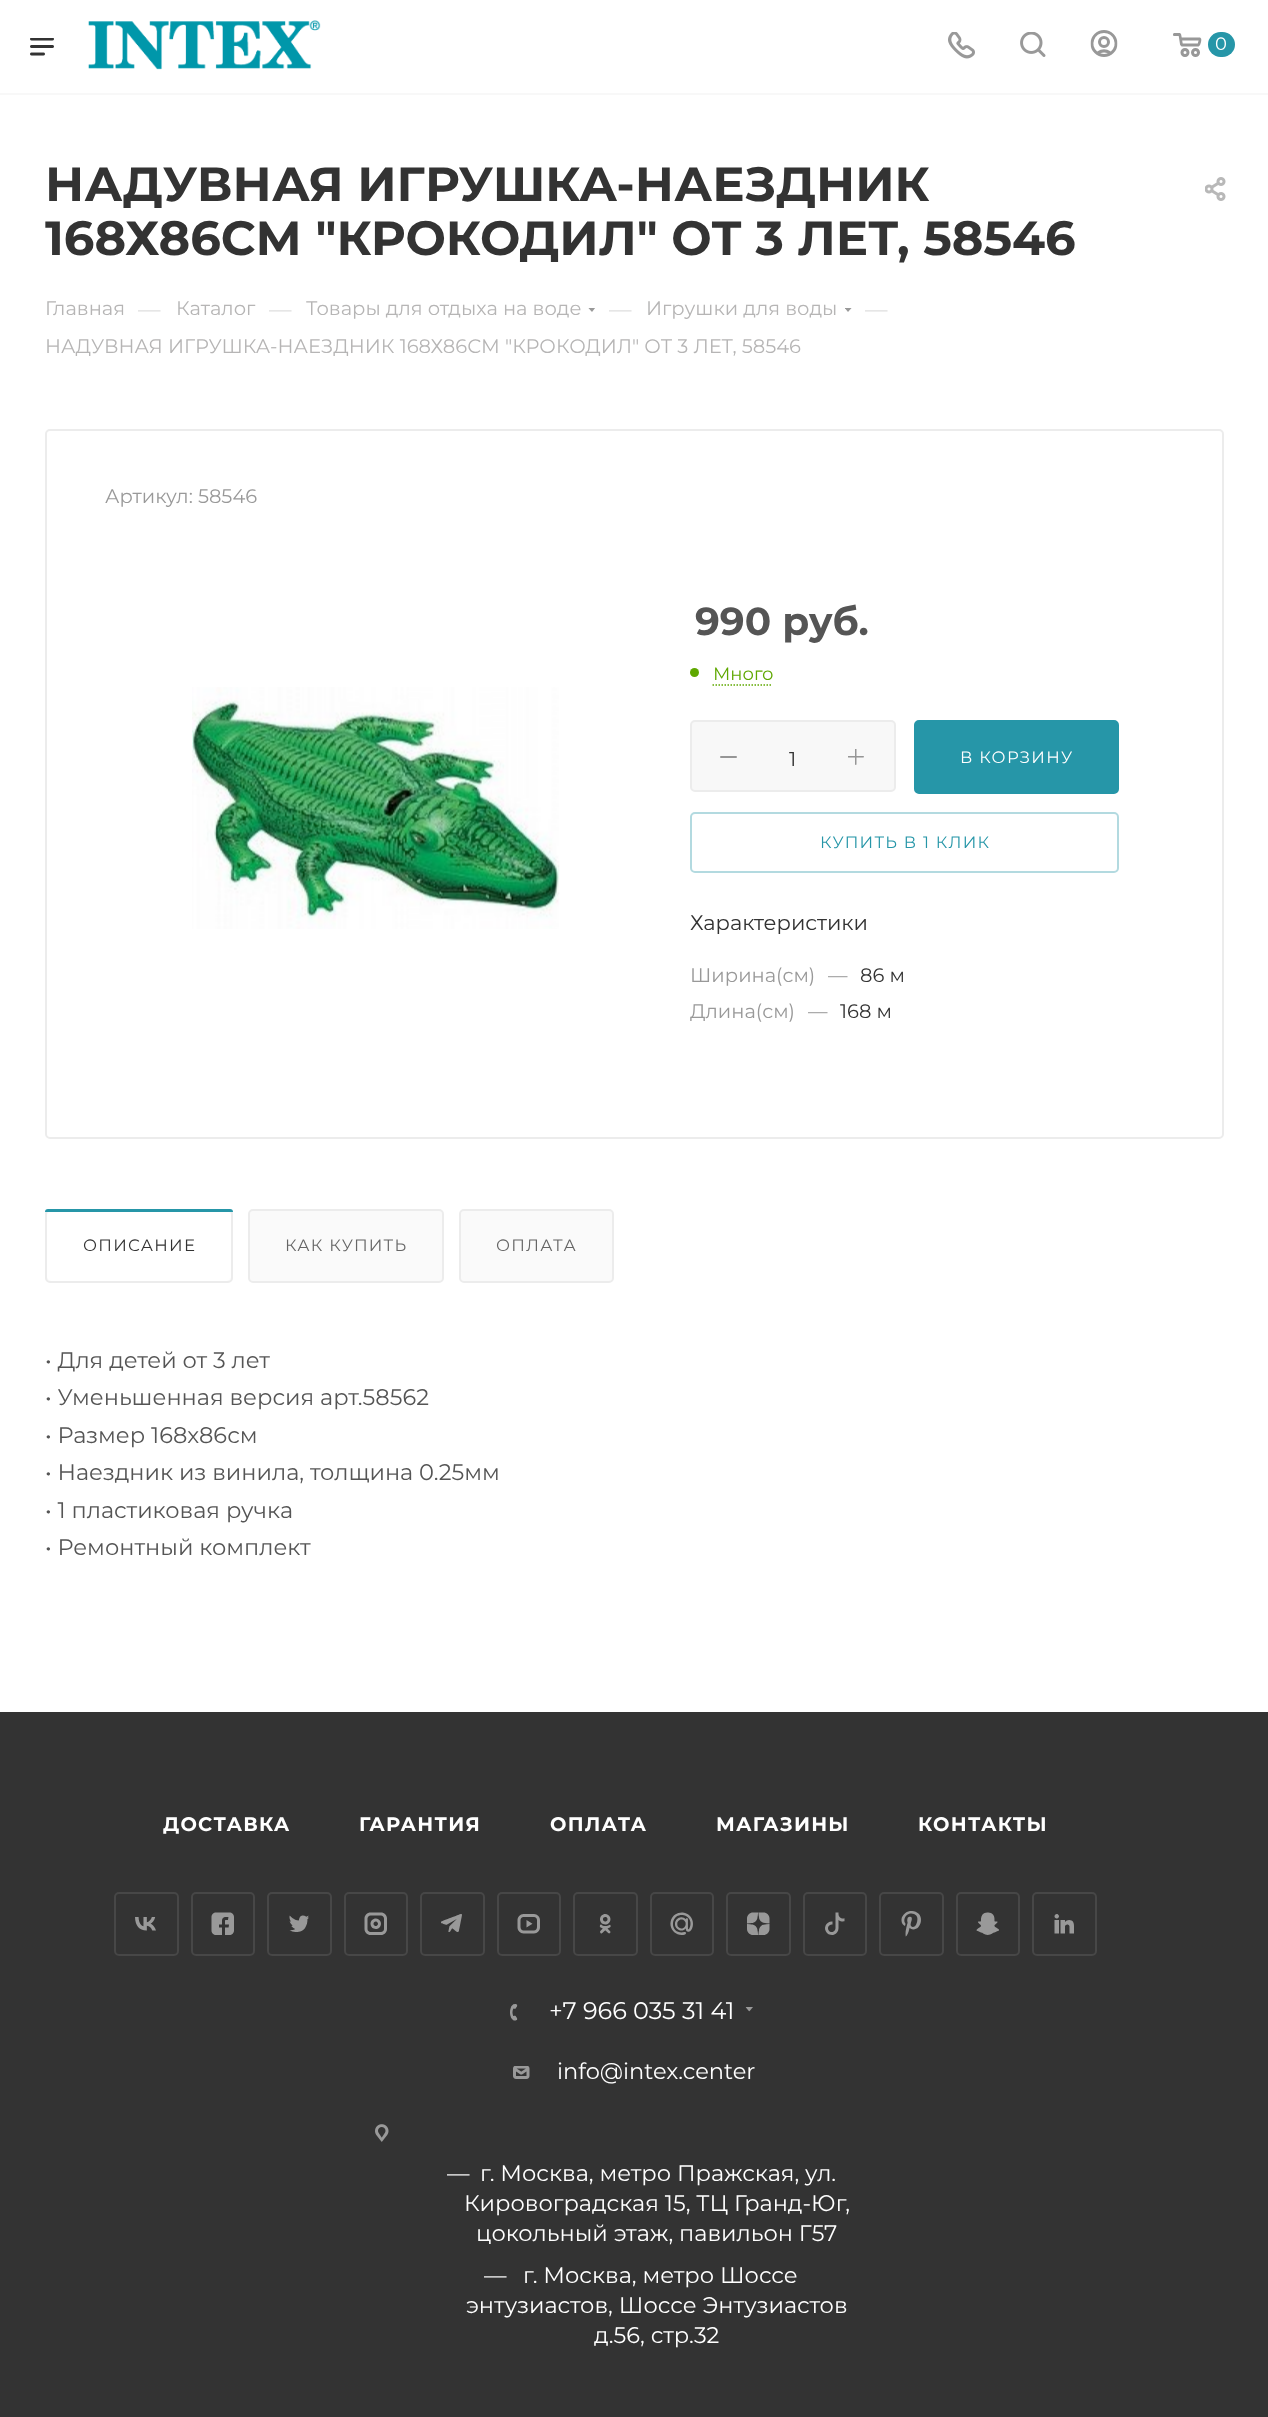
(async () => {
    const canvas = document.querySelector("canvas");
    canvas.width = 1268;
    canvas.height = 2417;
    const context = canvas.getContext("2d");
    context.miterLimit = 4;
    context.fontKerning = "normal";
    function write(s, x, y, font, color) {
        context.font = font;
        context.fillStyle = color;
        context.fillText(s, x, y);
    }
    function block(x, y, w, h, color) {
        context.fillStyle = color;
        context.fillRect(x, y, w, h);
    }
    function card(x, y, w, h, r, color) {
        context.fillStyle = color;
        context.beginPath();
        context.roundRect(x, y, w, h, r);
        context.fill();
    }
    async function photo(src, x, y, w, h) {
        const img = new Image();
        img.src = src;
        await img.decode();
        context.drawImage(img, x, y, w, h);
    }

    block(0, 0, 1268, 2417, "rgb(255, 255, 255)");
    block(0, 93, 1268, 2, "rgb(248, 248, 248)");
    await photo("media/1.png", 30, 38, 24, 18);
    await photo("media/2.png", 88, 20, 233, 50);
    await photo("media/3.png", 948, 32, 27, 27);
    await photo("media/4.png", 1020, 32, 26, 25);
    await photo("media/5.png", 1090, 30, 28, 27);
    await photo("media/6.png", 1173, 33, 29, 24);
    card(1208, 32, 27, 25, 12.5, "rgb(38, 150, 168)");
    write("0", 1215, 50, "18px Montserrat", "rgb(255, 255, 255)");
    write("НАДУВНАЯ ИГРУШКА-НАЕЗДНИК", 45, 201, "bold 48px Montserrat", "rgb(51, 51, 51)");
    write("168Х86СМ \"КРОКОДИЛ\" ОТ 3 ЛЕТ, 58546", 45, 255, "bold 48px Montserrat", "rgb(51, 51, 51)");
    await photo("media/7.png", 1205, 177, 21, 24);
    write("Главная", 45, 315, "19.5px Montserrat", "rgb(182, 181, 181)");
    write("—", 138, 317, "22.5px Montserrat", "rgb(221, 221, 221)");
    write("Каталог", 176, 315, "19.5px Montserrat", "rgb(182, 181, 181)");
    write("—", 269, 317, "22.5px Montserrat", "rgb(221, 221, 221)");
    write("Товары для отдыха на воде", 306, 315, "19.5px Montserrat", "rgb(182, 181, 181)");
    context.save();
    context.beginPath();
    context.rect(588, 308, 8, 5);
    context.clip();
    context.fillStyle = "rgb(153, 153, 153)";
    context.beginPath();
    context.moveTo(588, 307.5);
    context.lineTo(595.5, 307.5);
    context.lineTo(592, 312);
    context.closePath();
    context.fill("evenodd");
    context.restore();
    write("—", 609, 317, "22.5px Montserrat", "rgb(221, 221, 221)");
    write("Игрушки для воды", 646, 315, "19.5px Montserrat", "rgb(182, 181, 181)");
    context.save();
    context.beginPath();
    context.rect(845, 308, 7, 5);
    context.clip();
    context.fillStyle = "rgb(153, 153, 153)";
    context.beginPath();
    context.moveTo(844.5, 307.5);
    context.lineTo(852, 307.5);
    context.lineTo(848, 312);
    context.closePath();
    context.fill("evenodd");
    context.restore();
    write("—", 865, 317, "22.5px Montserrat", "rgb(221, 221, 221)");
    write("НАДУВНАЯ ИГРУШКА-НАЕЗДНИК 168Х86СМ \"КРОКОДИЛ\" ОТ 3 ЛЕТ, 58546", 45, 353, "19.5px Montserrat", "rgb(182, 181, 181)");
    context.beginPath();
    context.roundRect(46, 430, 1177, 708, 4);
    context.strokeStyle = "rgb(236, 236, 236)";
    context.lineWidth = 2;
    context.stroke();
    write("Артикул: 58546", 105, 503, "19.5px Montserrat", "rgb(153, 153, 153)");
    await photo("media/8.png", 192, 687, 368, 242);
    write("990 руб.", 695, 635, "bold 39px Montserrat", "rgb(85, 85, 85)");
    context.fillStyle = "rgb(95, 168, 0)";
    context.beginPath();
    context.arc(694.5, 672.5, 4.5, 0, Math.PI * 2);
    context.fill();
    write("Много", 713, 680, "18px Montserrat", "rgb(95, 168, 0)");
    context.beginPath();
    context.moveTo(712.5, 685);
    context.lineTo(772.5, 685);
    context.strokeStyle = "rgb(95, 168, 0)";
    context.lineWidth = 1.5;
    context.setLineDash([1.5, 1.5]);
    context.stroke();
    context.fillStyle = "rgb(248, 248, 248)";
    context.beginPath();
    context.roundRect(691, 721, 204, 70, 4);
    context.fill();
    context.strokeStyle = "rgb(236, 236, 236)";
    context.lineWidth = 2;
    context.setLineDash([]);
    context.stroke();
    card(720, 756, 17, 2, 1, "rgb(150, 150, 150)");
    write("1", 789, 766, "20px Montserrat", "rgb(51, 51, 51)");
    await photo("media/9.png", 848, 749, 16, 16);
    context.fillStyle = "rgb(38, 150, 168)";
    context.beginPath();
    context.roundRect(915, 721, 203, 72, 4);
    context.fill();
    context.strokeStyle = "rgb(38, 150, 168)";
    context.stroke();
    context.letterSpacing = "1.25px";
    write("В КОРЗИНУ", 960, 763, "16.5px Montserrat", "rgb(255, 255, 255)");
    context.beginPath();
    context.roundRect(691, 813, 427, 59, 4);
    context.strokeStyle = "rgb(179, 218, 224)";
    context.stroke();
    write("КУПИТЬ В 1 КЛИК", 820, 848, "16.5px Montserrat", "rgb(38, 150, 168)");
    context.letterSpacing = "0px";
    write("Характеристики", 690, 930, "21px Montserrat", "rgb(51, 51, 51)");
    write("Ширина(см)", 690, 982, "19.5px Montserrat", "rgb(153, 153, 153)");
    write("—", 828, 982, "19.5px Montserrat", "rgb(153, 153, 153)");
    write("86 м", 860, 982, "19.5px Montserrat", "rgb(51, 51, 51)");
    write("Длина(см)", 690, 1018, "19.5px Montserrat", "rgb(153, 153, 153)");
    write("—", 808, 1018, "19.5px Montserrat", "rgb(153, 153, 153)");
    write("168 м", 840, 1018, "19.5px Montserrat", "rgb(51, 51, 51)");
    context.fillStyle = "rgb(250, 250, 250)";
    context.beginPath();
    context.roundRect(46, 1210, 186, 72, 4);
    context.fill();
    context.strokeStyle = "rgb(236, 236, 236)";
    context.stroke();
    card(47, 1211, 184, 70, 5, "rgb(255, 255, 255)");
    context.fillStyle = "rgb(38, 150, 168)";
    context.beginPath();
    context.roundRect(45, 1209, 188, 3, [3, 3, 0, 0]);
    context.fill();
    context.letterSpacing = "1.25px";
    write("ОПИСАНИЕ", 83, 1251, "16.5px Montserrat", "rgb(51, 51, 51)");
    context.fillStyle = "rgb(250, 250, 250)";
    context.beginPath();
    context.roundRect(249, 1210, 194, 72, 4);
    context.fill();
    context.stroke();
    write("КАК КУПИТЬ", 285, 1251, "16.5px Montserrat", "rgb(102, 102, 102)");
    context.fillStyle = "rgb(250, 250, 250)";
    context.beginPath();
    context.roundRect(460, 1210, 153, 72, 4);
    context.fill();
    context.stroke();
    write("ОПЛАТА", 496, 1251, "16.5px Montserrat", "rgb(102, 102, 102)");
    context.letterSpacing = "0px";
    write("• Для детей от 3 лет", 45, 1368, "22.5px Montserrat", "rgb(85, 85, 85)");
    write("• Уменьшенная версия арт.58562", 45, 1405, "22.5px Montserrat", "rgb(85, 85, 85)");
    write("• Размер 168х86см", 45, 1443, "22.5px Montserrat", "rgb(85, 85, 85)");
    write("• Наездник из винила, толщина 0.25мм", 45, 1480, "22.5px Montserrat", "rgb(85, 85, 85)");
    write("• 1 пластиковая ручка", 45, 1518, "22.5px Montserrat", "rgb(85, 85, 85)");
    write("• Ремонтный комплект", 45, 1555, "22.5px Montserrat", "rgb(85, 85, 85)");
    block(0, 1712, 1268, 705, "rgb(51, 51, 51)");
    context.letterSpacing = "1.25px";
    write("ДОСТАВКА", 163, 1831, "bold 19.5px Montserrat", "rgb(255, 255, 255)");
    write("ГАРАНТИЯ", 359, 1831, "bold 19.5px Montserrat", "rgb(255, 255, 255)");
    write("ОПЛАТА", 550, 1831, "bold 19.5px Montserrat", "rgb(255, 255, 255)");
    write("МАГАЗИНЫ", 716, 1831, "bold 19.5px Montserrat", "rgb(255, 255, 255)");
    write("КОНТАКТЫ", 918, 1831, "bold 19.5px Montserrat", "rgb(255, 255, 255)");
    await photo("media/10.png", 135, 1917, 21, 14);
    context.beginPath();
    context.roundRect(115, 1893, 63, 62, 4);
    context.strokeStyle = "rgb(71, 71, 71)";
    context.stroke();
    await photo("media/11.png", 211, 1912, 23, 23);
    context.beginPath();
    context.roundRect(192, 1893, 62, 62, 4);
    context.stroke();
    await photo("media/12.png", 289, 1915, 20, 17);
    context.beginPath();
    context.roundRect(268, 1893, 63, 62, 4);
    context.stroke();
    await photo("media/13.png", 364, 1912, 23, 23);
    context.beginPath();
    context.roundRect(345, 1893, 62, 62, 4);
    context.stroke();
    await photo("media/14.png", 441, 1914, 21, 18);
    context.beginPath();
    context.roundRect(421, 1893, 63, 62, 4);
    context.stroke();
    await photo("media/15.png", 517, 1914, 23, 20);
    context.beginPath();
    context.roundRect(498, 1893, 62, 62, 4);
    context.stroke();
    await photo("media/16.png", 599, 1914, 12, 20);
    context.beginPath();
    context.roundRect(574, 1893, 63, 62, 4);
    context.stroke();
    await photo("media/17.png", 670, 1912, 23, 23);
    context.beginPath();
    context.roundRect(651, 1893, 62, 62, 4);
    context.stroke();
    await photo("media/18.png", 747, 1912, 23, 23);
    context.beginPath();
    context.roundRect(727, 1893, 63, 62, 4);
    context.stroke();
    await photo("media/19.png", 825, 1912, 20, 23);
    context.beginPath();
    context.roundRect(804, 1893, 62, 62, 4);
    context.stroke();
    await photo("media/20.png", 901, 1911, 20, 26);
    context.beginPath();
    context.roundRect(880, 1893, 63, 62, 4);
    context.stroke();
    await photo("media/21.png", 976, 1912, 23, 23);
    context.beginPath();
    context.roundRect(957, 1893, 62, 62, 4);
    context.stroke();
    await photo("media/22.png", 1054, 1914, 20, 20);
    context.beginPath();
    context.roundRect(1033, 1893, 63, 62, 4);
    context.stroke();
    await photo("media/23.png", 510, 2004, 8, 17);
    context.letterSpacing = "0px";
    write("+7 966 035 31 41", 549, 2019, "24px Montserrat", "rgb(255, 255, 255)");
    await photo("media/24.png", 745, 2007, 8, 5);
    await photo("media/25.png", 513, 2066, 17, 13);
    write("info@intex.center", 557, 2079, "22.5px Montserrat", "rgb(255, 255, 255)");
    await photo("media/26.png", 375, 2124, 14, 18);
    write("—", 447, 2181, "22.5px Montserrat", "rgb(255, 255, 255)");
    write("г. Москва, метро Пражская, ул.", 480, 2181, "22.5px Montserrat", "rgb(255, 255, 255)");
    write("Кировоградская 15, ТЦ Гранд-Юг,", 464, 2211, "22.5px Montserrat", "rgb(255, 255, 255)");
    write("цокольный этаж, павильон Г57", 476, 2241, "22.5px Montserrat", "rgb(255, 255, 255)");
    write("—", 484, 2283, "22.5px Montserrat", "rgb(255, 255, 255)");
    write("г. Москва, метро Шоссе", 523, 2283, "22.5px Montserrat", "rgb(255, 255, 255)");
    write("энтузиастов, Шоссе Энтузиастов", 466, 2313, "22.5px Montserrat", "rgb(255, 255, 255)");
    write("д.56, стр.32", 594, 2343, "22.5px Montserrat", "rgb(255, 255, 255)");
})();
